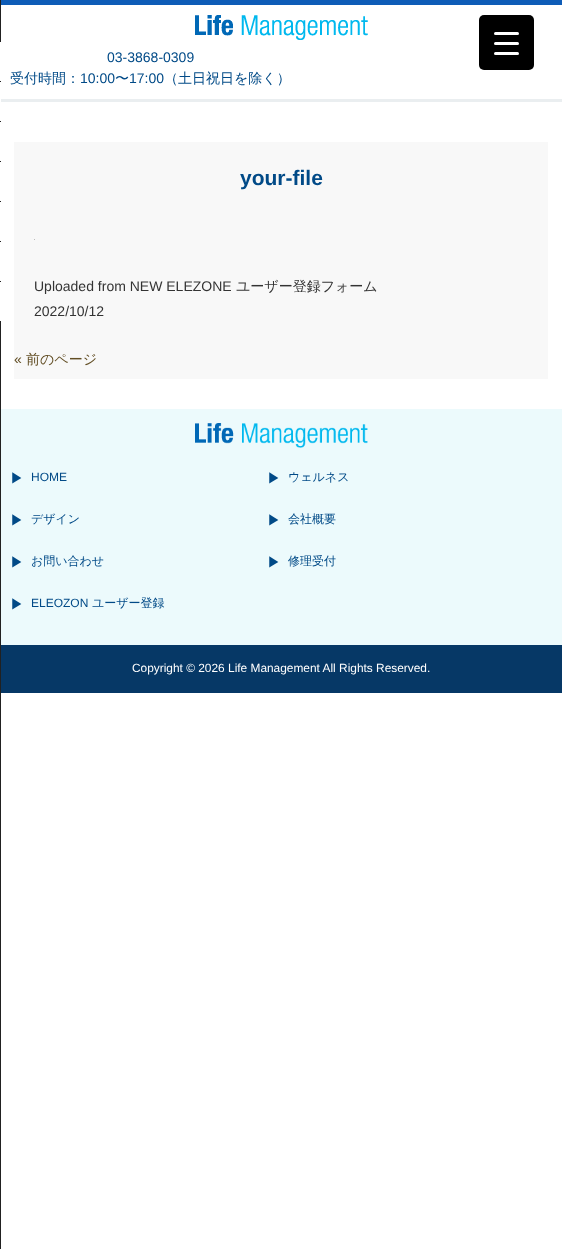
(async () => {
    const canvas = document.querySelector("canvas");
    canvas.width = 562;
    canvas.height = 1249;
    const context = canvas.getContext("2d");
    context.miterLimit = 4;
    context.fontKerning = "normal";
    function write(s, x, y, font, color) {
        context.font = font;
        context.fillStyle = color;
        context.fillText(s, x, y);
    }
    function block(x, y, w, h, color) {
        context.fillStyle = color;
        context.fillRect(x, y, w, h);
    }
    function card(x, y, w, h, r, color) {
        context.fillStyle = color;
        context.beginPath();
        context.roundRect(x, y, w, h, r);
        context.fill();
    }
    async function photo(src, x, y, w, h) {
        const img = new Image();
        img.src = src;
        await img.decode();
        context.drawImage(img, x, y, w, h);
    }

    block(0, 0, 562, 1249, "rgb(255, 255, 255)");
    block(0, 0, 562, 5, "rgb(14, 92, 183)");
    block(0, 99, 562, 3, "rgb(234, 238, 240)");
    block(0, 0, 1, 1249, "rgb(33, 33, 33)");
    block(0, 42, 1, 280, "rgb(255, 255, 255)");
    block(0, 81, 1, 1, "rgb(33, 33, 33)");
    block(0, 121, 1, 1, "rgb(33, 33, 33)");
    block(0, 161, 1, 1, "rgb(33, 33, 33)");
    block(0, 201, 1, 1, "rgb(33, 33, 33)");
    block(0, 241, 1, 1, "rgb(33, 33, 33)");
    block(0, 281, 1, 1, "rgb(33, 33, 33)");
    block(0, 321, 1, 1, "rgb(33, 33, 33)");
    await photo("media/1.png", 195, 15, 173, 25);
    write("03-3868-0309", 107, 62, "14px Liberation Sans", "rgb(1, 74, 135)");
    write("受付時間：", 10, 83, "500 14px WenQuanYi Zen Hei", "rgb(1, 74, 135)");
    write("10:00", 80, 83, "14px Liberation Sans", "rgb(1, 74, 135)");
    write("〜", 115, 83, "500 14px WenQuanYi Zen Hei", "rgb(1, 74, 135)");
    write("17:00", 129, 83, "14px Liberation Sans", "rgb(1, 74, 135)");
    write("（土日祝日を除く）", 164, 83, "500 14px WenQuanYi Zen Hei", "rgb(1, 74, 135)");
    card(479, 15, 55, 55, 5, "rgb(0, 0, 0)");
    card(494, 42, 25, 3, 1.5, "rgb(255, 255, 255)");
    card(494, 32, 25, 3, 1.5, "rgb(255, 255, 255)");
    card(494, 52, 25, 3, 1.5, "rgb(255, 255, 255)");
    block(14, 142, 534, 237, "rgb(248, 248, 248)");
    write("your-file", 240, 185, "bold 21px Liberation Sans", "rgb(1, 74, 135)");
    block(34, 239, 1, 1, "rgb(188, 188, 188)");
    write("Uploaded from NEW ELEZONE", 34, 291, "14px Liberation Sans", "rgb(51, 51, 51)");
    write("ユーザー登録フォーム", 236, 291, "500 14px WenQuanYi Zen Hei", "rgb(51, 51, 51)");
    write("2022/10/12", 34, 316, "14px Liberation Sans", "rgb(51, 51, 51)");
    write("«", 14, 364, "14px Liberation Sans", "rgb(98, 78, 36)");
    write("前のページ", 26, 364, "500 14px WenQuanYi Zen Hei", "rgb(98, 78, 36)");
    block(1, 409, 561, 236, "rgb(236, 250, 252)");
    await photo("media/2.png", 195, 423, 173, 25);
    write("▶︎", 10, 483, "500 14px WenQuanYi Zen Hei", "rgb(1, 74, 135)");
    write("HOME", 31, 481, "12px Liberation Sans", "rgb(1, 74, 135)");
    write("▶︎", 267, 483, "500 14px WenQuanYi Zen Hei", "rgb(1, 74, 135)");
    write("ウェルネス", 288, 481, "500 12px WenQuanYi Zen Hei", "rgb(1, 74, 135)");
    write("▶︎", 10, 525, "500 14px WenQuanYi Zen Hei", "rgb(1, 74, 135)");
    write("デザイン", 31, 523, "500 12px WenQuanYi Zen Hei", "rgb(1, 74, 135)");
    write("▶︎", 267, 525, "500 14px WenQuanYi Zen Hei", "rgb(1, 74, 135)");
    write("会社概要", 288, 523, "500 12px WenQuanYi Zen Hei", "rgb(1, 74, 135)");
    write("▶︎", 10, 567, "500 14px WenQuanYi Zen Hei", "rgb(1, 74, 135)");
    write("お問い合わせ", 31, 565, "500 12px WenQuanYi Zen Hei", "rgb(1, 74, 135)");
    write("▶︎", 267, 567, "500 14px WenQuanYi Zen Hei", "rgb(1, 74, 135)");
    write("修理受付", 288, 565, "500 12px WenQuanYi Zen Hei", "rgb(1, 74, 135)");
    write("▶︎", 10, 609, "500 14px WenQuanYi Zen Hei", "rgb(1, 74, 135)");
    write("ELEOZON", 31, 607, "12px Liberation Sans", "rgb(1, 74, 135)");
    write("ユーザー登録", 92, 607, "500 12px WenQuanYi Zen Hei", "rgb(1, 74, 135)");
    block(1, 645, 561, 48, "rgb(6, 56, 102)");
    write("Copyright © 2026 Life Management All Rights Reserved.", 132, 672, "11.9px Liberation Sans", "rgb(255, 255, 255)");
})();
